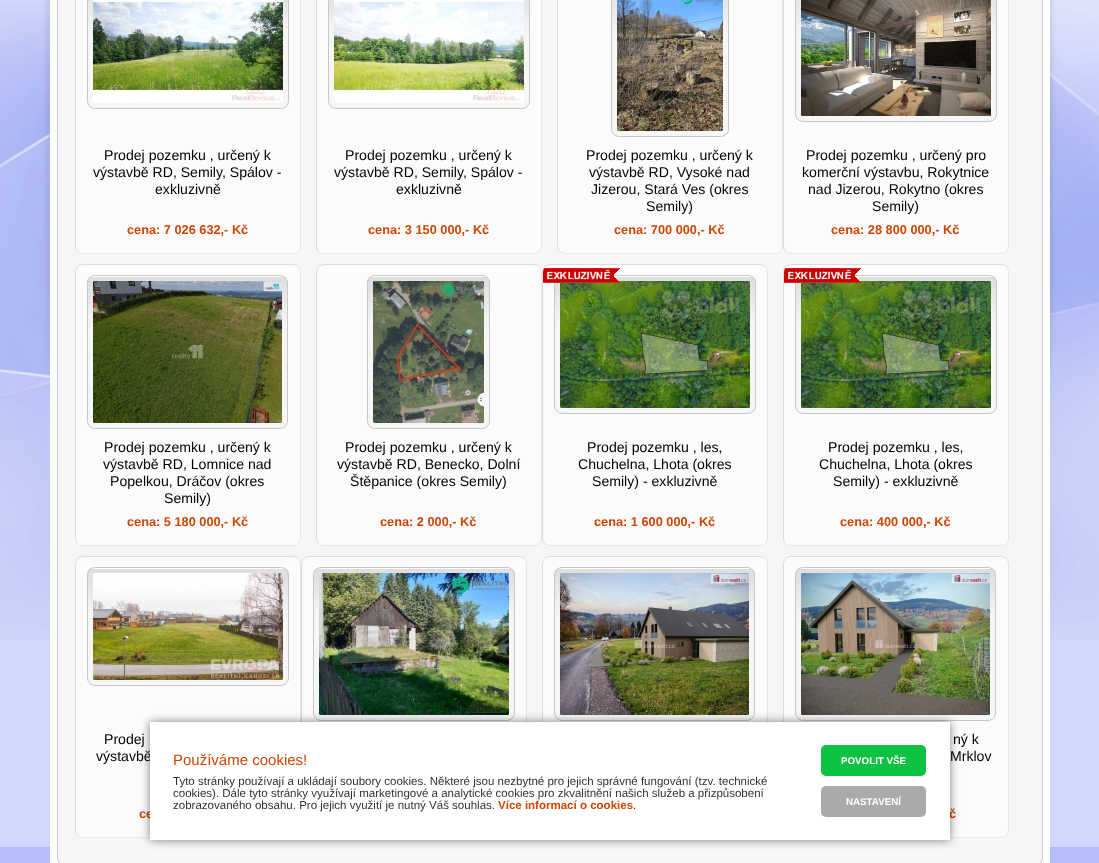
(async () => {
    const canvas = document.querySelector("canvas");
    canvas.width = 1099;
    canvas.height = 863;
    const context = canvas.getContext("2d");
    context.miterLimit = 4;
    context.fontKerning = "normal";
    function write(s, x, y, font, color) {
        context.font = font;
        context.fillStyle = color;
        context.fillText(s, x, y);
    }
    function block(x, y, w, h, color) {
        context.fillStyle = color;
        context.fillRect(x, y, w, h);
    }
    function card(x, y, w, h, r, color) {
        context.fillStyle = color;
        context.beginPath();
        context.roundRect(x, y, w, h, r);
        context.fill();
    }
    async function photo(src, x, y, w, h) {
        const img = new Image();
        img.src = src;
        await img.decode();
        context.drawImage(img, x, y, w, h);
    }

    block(0, 0, 1099, 863, "rgb(209, 215, 250)");
    await photo("media/1.png", 0, 0, 1099, 639);
    block(50, 0, 1000, 847, "rgb(255, 255, 255)");
    block(0, 847, 1099, 16, "rgb(180, 189, 247)");
    block(50, 847, 1000, 16, "rgb(255, 255, 255)");
    context.fillStyle = "rgb(246, 246, 246)";
    context.beginPath();
    context.roundRect(57.5, -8.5, 985, 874, 7.5);
    context.fill();
    context.strokeStyle = "rgb(200, 200, 200)";
    context.stroke();
    card(75, -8, 226, 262, 8, "rgb(251, 251, 251)");
    context.beginPath();
    context.moveTo(298.5, -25.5);
    context.bezierCurveTo(299.5, -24, 300.5, -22, 300.5, -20);
    context.lineTo(300.5, 246);
    context.bezierCurveTo(300.5, 248, 299.5, 250, 298.5, 251.5);
    context.bezierCurveTo(297, 252.5, 295, 253.5, 293, 253.5);
    context.lineTo(83, 253.5);
    context.bezierCurveTo(81, 253.5, 79, 252.5, 77.5, 251.5);
    context.strokeStyle = "rgb(230, 230, 230)";
    context.stroke();
    context.beginPath();
    context.moveTo(77.5, 251.5);
    context.bezierCurveTo(76.5, 250, 75.5, 248, 75.5, 246);
    context.lineTo(75.5, -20);
    context.bezierCurveTo(75.5, -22, 76.5, -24, 77.5, -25.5);
    context.bezierCurveTo(79, -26.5, 81, -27.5, 83, -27.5);
    context.lineTo(293, -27.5);
    context.bezierCurveTo(295, -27.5, 297, -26.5, 298.5, -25.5);
    context.strokeStyle = "rgb(220, 220, 220)";
    context.stroke();
    card(87, -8, 202, 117, 8, "rgb(246, 246, 246)");
    await photo("media/2.png", 88, 0, 200, 103);
    context.beginPath();
    context.roundRect(87.5, -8.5, 201, 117, 7.5);
    context.strokeStyle = "rgb(200, 200, 200)";
    context.stroke();
    write("Prodej pozemku , určený k", 104, 160, "14.1px Liberation Sans", "rgb(0, 0, 0)");
    write("výstavbě RD, Semily, Spálov -", 93, 177, "14.1px Liberation Sans", "rgb(0, 0, 0)");
    write("exkluzivně", 155, 194, "14.1px Liberation Sans", "rgb(0, 0, 0)");
    write("cena: 7 026 632,- Kč", 127, 234, "bold 12.75px Liberation Sans", "rgb(207, 69, 4)");
    card(316, -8, 226, 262, 8, "rgb(251, 251, 251)");
    context.beginPath();
    context.moveTo(539.5, -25.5);
    context.bezierCurveTo(540.5, -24, 541.5, -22, 541.5, -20);
    context.lineTo(541.5, 246);
    context.bezierCurveTo(541.5, 248, 540.5, 250, 539.5, 251.5);
    context.bezierCurveTo(538, 252.5, 536, 253.5, 534, 253.5);
    context.lineTo(324, 253.5);
    context.bezierCurveTo(322, 253.5, 320, 252.5, 318.5, 251.5);
    context.strokeStyle = "rgb(230, 230, 230)";
    context.stroke();
    context.beginPath();
    context.moveTo(318.5, 251.5);
    context.bezierCurveTo(317.5, 250, 316.5, 248, 316.5, 246);
    context.lineTo(316.5, -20);
    context.bezierCurveTo(316.5, -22, 317.5, -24, 318.5, -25.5);
    context.bezierCurveTo(320, -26.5, 322, -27.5, 324, -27.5);
    context.lineTo(534, -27.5);
    context.bezierCurveTo(536, -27.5, 538, -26.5, 539.5, -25.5);
    context.strokeStyle = "rgb(220, 220, 220)";
    context.stroke();
    card(328, -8, 202, 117, 8, "rgb(246, 246, 246)");
    await photo("media/3.png", 329, 0, 200, 103);
    context.beginPath();
    context.roundRect(328.5, -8.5, 201, 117, 7.5);
    context.strokeStyle = "rgb(200, 200, 200)";
    context.stroke();
    write("Prodej pozemku , určený k", 345, 160, "14.1px Liberation Sans", "rgb(0, 0, 0)");
    write("výstavbě RD, Semily, Spálov -", 334, 177, "14.1px Liberation Sans", "rgb(0, 0, 0)");
    write("exkluzivně", 396, 194, "14.1px Liberation Sans", "rgb(0, 0, 0)");
    write("cena: 3 150 000,- Kč", 368, 234, "bold 12.75px Liberation Sans", "rgb(207, 69, 4)");
    card(557, -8, 226, 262, 8, "rgb(251, 251, 251)");
    context.beginPath();
    context.moveTo(780.5, -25.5);
    context.bezierCurveTo(781.5, -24, 782.5, -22, 782.5, -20);
    context.lineTo(782.5, 246);
    context.bezierCurveTo(782.5, 248, 781.5, 250, 780.5, 251.5);
    context.bezierCurveTo(779, 252.5, 777, 253.5, 775, 253.5);
    context.lineTo(565, 253.5);
    context.bezierCurveTo(563, 253.5, 561, 252.5, 559.5, 251.5);
    context.strokeStyle = "rgb(230, 230, 230)";
    context.stroke();
    context.beginPath();
    context.moveTo(559.5, 251.5);
    context.bezierCurveTo(558.5, 250, 557.5, 248, 557.5, 246);
    context.lineTo(557.5, -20);
    context.bezierCurveTo(557.5, -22, 558.5, -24, 559.5, -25.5);
    context.bezierCurveTo(561, -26.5, 563, -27.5, 565, -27.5);
    context.lineTo(775, -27.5);
    context.bezierCurveTo(777, -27.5, 779, -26.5, 780.5, -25.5);
    context.strokeStyle = "rgb(220, 220, 220)";
    context.stroke();
    card(611, -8, 118, 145, 8, "rgb(246, 246, 246)");
    await photo("media/4.png", 612, 0, 116, 131);
    context.beginPath();
    context.roundRect(611.5, -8.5, 117, 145, 7.5);
    context.strokeStyle = "rgb(200, 200, 200)";
    context.stroke();
    await photo("media/5.png", 617, 129, 106, 2);
    write("Prodej pozemku , určený k", 586, 160, "14.1px Liberation Sans", "rgb(0, 0, 0)");
    write("výstavbě RD, Vysoké nad", 589, 177, "14.1px Liberation Sans", "rgb(0, 0, 0)");
    write("Jizerou, Stará Ves (okres", 591, 194, "14.1px Liberation Sans", "rgb(0, 0, 0)");
    write("Semily)", 646, 211, "14.1px Liberation Sans", "rgb(0, 0, 0)");
    write("cena: 700 000,- Kč", 614, 234, "bold 12.75px Liberation Sans", "rgb(207, 69, 4)");
    card(783, -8, 226, 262, 8, "rgb(251, 251, 251)");
    context.beginPath();
    context.moveTo(1006.5, -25.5);
    context.bezierCurveTo(1007.5, -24, 1008.5, -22, 1008.5, -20);
    context.lineTo(1008.5, 246);
    context.bezierCurveTo(1008.5, 248, 1007.5, 250, 1006.5, 251.5);
    context.bezierCurveTo(1005, 252.5, 1003, 253.5, 1001, 253.5);
    context.lineTo(791, 253.5);
    context.bezierCurveTo(789, 253.5, 787, 252.5, 785.5, 251.5);
    context.strokeStyle = "rgb(230, 230, 230)";
    context.stroke();
    context.beginPath();
    context.moveTo(785.5, 251.5);
    context.bezierCurveTo(784.5, 250, 783.5, 248, 783.5, 246);
    context.lineTo(783.5, -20);
    context.bezierCurveTo(783.5, -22, 784.5, -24, 785.5, -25.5);
    context.bezierCurveTo(787, -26.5, 789, -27.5, 791, -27.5);
    context.lineTo(1001, -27.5);
    context.bezierCurveTo(1003, -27.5, 1005, -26.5, 1006.5, -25.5);
    context.strokeStyle = "rgb(220, 220, 220)";
    context.stroke();
    card(795, -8, 202, 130, 8, "rgb(246, 246, 246)");
    await photo("media/6.png", 796, 0, 200, 116);
    context.beginPath();
    context.roundRect(795.5, -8.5, 201, 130, 7.5);
    context.strokeStyle = "rgb(200, 200, 200)";
    context.stroke();
    await photo("media/7.png", 801, 114, 190, 2);
    write("Prodej pozemku , určený pro", 806, 160, "14.1px Liberation Sans", "rgb(0, 0, 0)");
    write("komerční výstavbu, Rokytnice", 802, 177, "14.1px Liberation Sans", "rgb(0, 0, 0)");
    write("nad Jizerou, Rokytno (okres", 808, 194, "14.1px Liberation Sans", "rgb(0, 0, 0)");
    write("Semily)", 872, 211, "14.1px Liberation Sans", "rgb(0, 0, 0)");
    write("cena: 28 800 000,- Kč", 831, 234, "bold 12.75px Liberation Sans", "rgb(207, 69, 4)");
    card(75, 264, 226, 282, 8, "rgb(251, 251, 251)");
    context.beginPath();
    context.moveTo(298.5, 266.5);
    context.bezierCurveTo(299.5, 268, 300.5, 270, 300.5, 272);
    context.lineTo(300.5, 538);
    context.bezierCurveTo(300.5, 540, 299.5, 542, 298.5, 543.5);
    context.bezierCurveTo(297, 544.5, 295, 545.5, 293, 545.5);
    context.lineTo(83, 545.5);
    context.bezierCurveTo(81, 545.5, 79, 544.5, 77.5, 543.5);
    context.strokeStyle = "rgb(230, 230, 230)";
    context.stroke();
    context.beginPath();
    context.moveTo(77.5, 543.5);
    context.bezierCurveTo(76.5, 542, 75.5, 540, 75.5, 538);
    context.lineTo(75.5, 272);
    context.bezierCurveTo(75.5, 270, 76.5, 268, 77.5, 266.5);
    context.bezierCurveTo(79, 265.5, 81, 264.5, 83, 264.5);
    context.lineTo(293, 264.5);
    context.bezierCurveTo(295, 264.5, 297, 265.5, 298.5, 266.5);
    context.strokeStyle = "rgb(220, 220, 220)";
    context.stroke();
    card(87, 275, 201, 154, 8, "rgb(246, 246, 246)");
    await photo("media/8.png", 87, 276, 201, 147);
    context.beginPath();
    context.roundRect(87.5, 275.5, 200, 153, 7.5);
    context.strokeStyle = "rgb(200, 200, 200)";
    context.stroke();
    await photo("media/9.png", 93, 281, 189, 142);
    write("Prodej pozemku , určený k", 104, 452, "14.1px Liberation Sans", "rgb(0, 0, 0)");
    write("výstavbě RD, Lomnice nad", 103, 469, "14.1px Liberation Sans", "rgb(0, 0, 0)");
    write("Popelkou, Dráčov (okres", 110, 486, "14.1px Liberation Sans", "rgb(0, 0, 0)");
    write("Semily)", 164, 503, "14.1px Liberation Sans", "rgb(0, 0, 0)");
    write("cena: 5 180 000,- Kč", 127, 526, "bold 12.75px Liberation Sans", "rgb(207, 69, 4)");
    card(316, 264, 226, 282, 8, "rgb(251, 251, 251)");
    context.beginPath();
    context.moveTo(539.5, 266.5);
    context.bezierCurveTo(540.5, 268, 541.5, 270, 541.5, 272);
    context.lineTo(541.5, 538);
    context.bezierCurveTo(541.5, 540, 540.5, 542, 539.5, 543.5);
    context.bezierCurveTo(538, 544.5, 536, 545.5, 534, 545.5);
    context.lineTo(324, 545.5);
    context.bezierCurveTo(322, 545.5, 320, 544.5, 318.5, 543.5);
    context.strokeStyle = "rgb(230, 230, 230)";
    context.stroke();
    context.beginPath();
    context.moveTo(318.5, 543.5);
    context.bezierCurveTo(317.5, 542, 316.5, 540, 316.5, 538);
    context.lineTo(316.5, 272);
    context.bezierCurveTo(316.5, 270, 317.5, 268, 318.5, 266.5);
    context.bezierCurveTo(320, 265.5, 322, 264.5, 324, 264.5);
    context.lineTo(534, 264.5);
    context.bezierCurveTo(536, 264.5, 538, 265.5, 539.5, 266.5);
    context.strokeStyle = "rgb(220, 220, 220)";
    context.stroke();
    card(367, 275, 123, 154, 8, "rgb(246, 246, 246)");
    await photo("media/10.png", 367, 276, 123, 147);
    context.beginPath();
    context.roundRect(367.5, 275.5, 122, 153, 7.5);
    context.strokeStyle = "rgb(200, 200, 200)";
    context.stroke();
    await photo("media/11.png", 373, 281, 111, 142);
    write("Prodej pozemku , určený k", 345, 452, "14.1px Liberation Sans", "rgb(0, 0, 0)");
    write("výstavbě RD, Benecko, Dolní", 337, 469, "14.1px Liberation Sans", "rgb(0, 0, 0)");
    write("Štěpanice (okres Semily)", 350, 486, "14.1px Liberation Sans", "rgb(0, 0, 0)");
    write("cena: 2 000,- Kč", 380, 526, "bold 12.75px Liberation Sans", "rgb(207, 69, 4)");
    card(542, 264, 226, 282, 8, "rgb(251, 251, 251)");
    context.beginPath();
    context.moveTo(765.5, 266.5);
    context.bezierCurveTo(766.5, 268, 767.5, 270, 767.5, 272);
    context.lineTo(767.5, 538);
    context.bezierCurveTo(767.5, 540, 766.5, 542, 765.5, 543.5);
    context.bezierCurveTo(764, 544.5, 762, 545.5, 760, 545.5);
    context.lineTo(550, 545.5);
    context.bezierCurveTo(548, 545.5, 546, 544.5, 544.5, 543.5);
    context.strokeStyle = "rgb(230, 230, 230)";
    context.stroke();
    context.beginPath();
    context.moveTo(544.5, 543.5);
    context.bezierCurveTo(543.5, 542, 542.5, 540, 542.5, 538);
    context.lineTo(542.5, 272);
    context.bezierCurveTo(542.5, 270, 543.5, 268, 544.5, 266.5);
    context.bezierCurveTo(546, 265.5, 548, 264.5, 550, 264.5);
    context.lineTo(760, 264.5);
    context.bezierCurveTo(762, 264.5, 764, 265.5, 765.5, 266.5);
    context.strokeStyle = "rgb(220, 220, 220)";
    context.stroke();
    card(554, 275, 202, 139, 8, "rgb(246, 246, 246)");
    await photo("media/13.png", 555, 276, 201, 132);
    context.beginPath();
    context.roundRect(554.5, 275.5, 201, 138, 7.5);
    context.strokeStyle = "rgb(200, 200, 200)";
    context.stroke();
    await photo("media/14.png", 560, 281, 190, 127);
    await photo("media/12.png", 543, 268, 77, 15);
    write("Prodej pozemku , les,", 587, 452, "14.1px Liberation Sans", "rgb(0, 0, 0)");
    write("Chuchelna, Lhota (okres", 578, 469, "14.1px Liberation Sans", "rgb(0, 0, 0)");
    write("Semily) - exkluzivně", 592, 486, "14.1px Liberation Sans", "rgb(0, 0, 0)");
    write("cena: 1 600 000,- Kč", 594, 526, "bold 12.75px Liberation Sans", "rgb(207, 69, 4)");
    card(783, 264, 226, 282, 8, "rgb(251, 251, 251)");
    context.beginPath();
    context.moveTo(1006.5, 266.5);
    context.bezierCurveTo(1007.5, 268, 1008.5, 270, 1008.5, 272);
    context.lineTo(1008.5, 538);
    context.bezierCurveTo(1008.5, 540, 1007.5, 542, 1006.5, 543.5);
    context.bezierCurveTo(1005, 544.5, 1003, 545.5, 1001, 545.5);
    context.lineTo(791, 545.5);
    context.bezierCurveTo(789, 545.5, 787, 544.5, 785.5, 543.5);
    context.strokeStyle = "rgb(230, 230, 230)";
    context.stroke();
    context.beginPath();
    context.moveTo(785.5, 543.5);
    context.bezierCurveTo(784.5, 542, 783.5, 540, 783.5, 538);
    context.lineTo(783.5, 272);
    context.bezierCurveTo(783.5, 270, 784.5, 268, 785.5, 266.5);
    context.bezierCurveTo(787, 265.5, 789, 264.5, 791, 264.5);
    context.lineTo(1001, 264.5);
    context.bezierCurveTo(1003, 264.5, 1005, 265.5, 1006.5, 266.5);
    context.strokeStyle = "rgb(220, 220, 220)";
    context.stroke();
    card(795, 275, 202, 139, 8, "rgb(246, 246, 246)");
    await photo("media/13.png", 796, 276, 201, 132);
    context.beginPath();
    context.roundRect(795.5, 275.5, 201, 138, 7.5);
    context.strokeStyle = "rgb(200, 200, 200)";
    context.stroke();
    await photo("media/14.png", 801, 281, 190, 127);
    await photo("media/12.png", 784, 268, 77, 15);
    write("Prodej pozemku , les,", 828, 452, "14.1px Liberation Sans", "rgb(0, 0, 0)");
    write("Chuchelna, Lhota (okres", 819, 469, "14.1px Liberation Sans", "rgb(0, 0, 0)");
    write("Semily) - exkluzivně", 833, 486, "14.1px Liberation Sans", "rgb(0, 0, 0)");
    write("cena: 400 000,- Kč", 840, 526, "bold 12.75px Liberation Sans", "rgb(207, 69, 4)");
    card(75, 556, 226, 282, 8, "rgb(251, 251, 251)");
    context.beginPath();
    context.moveTo(298.5, 558.5);
    context.bezierCurveTo(299.5, 560, 300.5, 562, 300.5, 564);
    context.lineTo(300.5, 830);
    context.bezierCurveTo(300.5, 832, 299.5, 834, 298.5, 835.5);
    context.bezierCurveTo(297, 836.5, 295, 837.5, 293, 837.5);
    context.lineTo(83, 837.5);
    context.bezierCurveTo(81, 837.5, 79, 836.5, 77.5, 835.5);
    context.strokeStyle = "rgb(230, 230, 230)";
    context.stroke();
    context.beginPath();
    context.moveTo(77.5, 835.5);
    context.bezierCurveTo(76.5, 834, 75.5, 832, 75.5, 830);
    context.lineTo(75.5, 564);
    context.bezierCurveTo(75.5, 562, 76.5, 560, 77.5, 558.5);
    context.bezierCurveTo(79, 557.5, 81, 556.5, 83, 556.5);
    context.lineTo(293, 556.5);
    context.bezierCurveTo(295, 556.5, 297, 557.5, 298.5, 558.5);
    context.strokeStyle = "rgb(220, 220, 220)";
    context.stroke();
    card(87, 567, 202, 119, 8, "rgb(246, 246, 246)");
    await photo("media/15.png", 87, 568, 202, 112);
    context.beginPath();
    context.roundRect(87.5, 567.5, 201, 118, 7.5);
    context.strokeStyle = "rgb(200, 200, 200)";
    context.stroke();
    await photo("media/16.png", 93, 573, 190, 107);
    write("Prodej", 104, 744, "14.1px Liberation Sans", "rgb(0, 0, 0)");
    write("výstavbě", 96, 761, "14.1px Liberation Sans", "rgb(0, 0, 0)");
    write("ce", 139, 818, "bold 12.75px Liberation Sans", "rgb(207, 69, 4)");
    card(301, 556, 226, 282, 8, "rgb(251, 251, 251)");
    context.beginPath();
    context.moveTo(524.5, 558.5);
    context.bezierCurveTo(525.5, 560, 526.5, 562, 526.5, 564);
    context.lineTo(526.5, 830);
    context.bezierCurveTo(526.5, 832, 525.5, 834, 524.5, 835.5);
    context.bezierCurveTo(523, 836.5, 521, 837.5, 519, 837.5);
    context.lineTo(309, 837.5);
    context.bezierCurveTo(307, 837.5, 305, 836.5, 303.5, 835.5);
    context.strokeStyle = "rgb(230, 230, 230)";
    context.stroke();
    context.beginPath();
    context.moveTo(303.5, 835.5);
    context.bezierCurveTo(302.5, 834, 301.5, 832, 301.5, 830);
    context.lineTo(301.5, 564);
    context.bezierCurveTo(301.5, 562, 302.5, 560, 303.5, 558.5);
    context.bezierCurveTo(305, 557.5, 307, 556.5, 309, 556.5);
    context.lineTo(519, 556.5);
    context.bezierCurveTo(521, 556.5, 523, 557.5, 524.5, 558.5);
    context.strokeStyle = "rgb(220, 220, 220)";
    context.stroke();
    card(313, 567, 202, 154, 8, "rgb(246, 246, 246)");
    await photo("media/17.png", 313, 568, 202, 147);
    context.beginPath();
    context.roundRect(313.5, 567.5, 201, 153, 7.5);
    context.strokeStyle = "rgb(200, 200, 200)";
    context.stroke();
    await photo("media/18.png", 319, 573, 190, 142);
    card(542, 556, 226, 282, 8, "rgb(251, 251, 251)");
    context.beginPath();
    context.moveTo(765.5, 558.5);
    context.bezierCurveTo(766.5, 560, 767.5, 562, 767.5, 564);
    context.lineTo(767.5, 830);
    context.bezierCurveTo(767.5, 832, 766.5, 834, 765.5, 835.5);
    context.bezierCurveTo(764, 836.5, 762, 837.5, 760, 837.5);
    context.lineTo(550, 837.5);
    context.bezierCurveTo(548, 837.5, 546, 836.5, 544.5, 835.5);
    context.strokeStyle = "rgb(230, 230, 230)";
    context.stroke();
    context.beginPath();
    context.moveTo(544.5, 835.5);
    context.bezierCurveTo(543.5, 834, 542.5, 832, 542.5, 830);
    context.lineTo(542.5, 564);
    context.bezierCurveTo(542.5, 562, 543.5, 560, 544.5, 558.5);
    context.bezierCurveTo(546, 557.5, 548, 556.5, 550, 556.5);
    context.lineTo(760, 556.5);
    context.bezierCurveTo(762, 556.5, 764, 557.5, 765.5, 558.5);
    context.strokeStyle = "rgb(220, 220, 220)";
    context.stroke();
    card(554, 567, 201, 154, 8, "rgb(246, 246, 246)");
    await photo("media/19.png", 554, 568, 201, 147);
    context.beginPath();
    context.roundRect(554.5, 567.5, 200, 153, 7.5);
    context.strokeStyle = "rgb(200, 200, 200)";
    context.stroke();
    await photo("media/20.png", 560, 573, 189, 142);
    card(783, 556, 226, 282, 8, "rgb(251, 251, 251)");
    context.beginPath();
    context.moveTo(1006.5, 558.5);
    context.bezierCurveTo(1007.5, 560, 1008.5, 562, 1008.5, 564);
    context.lineTo(1008.5, 830);
    context.bezierCurveTo(1008.5, 832, 1007.5, 834, 1006.5, 835.5);
    context.bezierCurveTo(1005, 836.5, 1003, 837.5, 1001, 837.5);
    context.lineTo(791, 837.5);
    context.bezierCurveTo(789, 837.5, 787, 836.5, 785.5, 835.5);
    context.strokeStyle = "rgb(230, 230, 230)";
    context.stroke();
    context.beginPath();
    context.moveTo(785.5, 835.5);
    context.bezierCurveTo(784.5, 834, 783.5, 832, 783.5, 830);
    context.lineTo(783.5, 564);
    context.bezierCurveTo(783.5, 562, 784.5, 560, 785.5, 558.5);
    context.bezierCurveTo(787, 557.5, 789, 556.5, 791, 556.5);
    context.lineTo(1001, 556.5);
    context.bezierCurveTo(1003, 556.5, 1005, 557.5, 1006.5, 558.5);
    context.strokeStyle = "rgb(220, 220, 220)";
    context.stroke();
    card(795, 567, 201, 154, 8, "rgb(246, 246, 246)");
    await photo("media/21.png", 795, 568, 201, 147);
    context.beginPath();
    context.roundRect(795.5, 567.5, 200, 153, 7.5);
    context.strokeStyle = "rgb(200, 200, 200)";
    context.stroke();
    await photo("media/22.png", 801, 573, 189, 142);
    write("ný k", 953, 744, "14.1px Liberation Sans", "rgb(0, 0, 0)");
    write("Mrklov", 950, 761, "14.1px Liberation Sans", "rgb(0, 0, 0)");
    write("č", 949, 818, "bold 12.75px Liberation Sans", "rgb(207, 69, 4)");
    context.fillStyle = "rgba(0, 0, 0, 0.5)";
    context.filter = "blur(5px)";
    context.beginPath();
    context.rect(150, 722, 800, 118);
    context.fill();
    context.filter = "none";
    block(150, 722, 800, 118, "rgb(255, 255, 255)");
    write("Používáme cookies!", 173, 765, "15px Liberation Sans", "rgb(207, 69, 4)");
    write("Tyto stránky používají a ukládají soubory cookies. Některé jsou nezbytné pro jejich správné fungování (tzv. technické", 173, 785, "11.52px Liberation Sans", "rgb(51, 51, 51)");
    write("cookies). Dále tyto stránky využívají marketingové a analytické cookies pro zkvalitnění našich služeb a přizpůsobení", 173, 797, "11.52px Liberation Sans", "rgb(51, 51, 51)");
    write("zobrazovaného obsahu. Pro jejich využití je nutný Váš souhlas.", 173, 809, "11.52px Liberation Sans", "rgb(51, 51, 51)");
    write("Více informací o cookies", 498, 809, "bold 11.52px Liberation Sans", "rgb(207, 69, 4)");
    write(".", 633, 809, "11.52px Liberation Sans", "rgb(51, 51, 51)");
    card(821, 745, 105, 31, 5, "rgb(13, 193, 67)");
    write("POVOLIT VŠE", 841, 764, "bold 9.75px Liberation Sans", "rgb(255, 255, 255)");
    card(821, 786, 105, 31, 5, "rgb(170, 170, 170)");
    write("NASTAVENÍ", 846, 805, "bold 9.75px Liberation Sans", "rgb(255, 255, 255)");
})();
